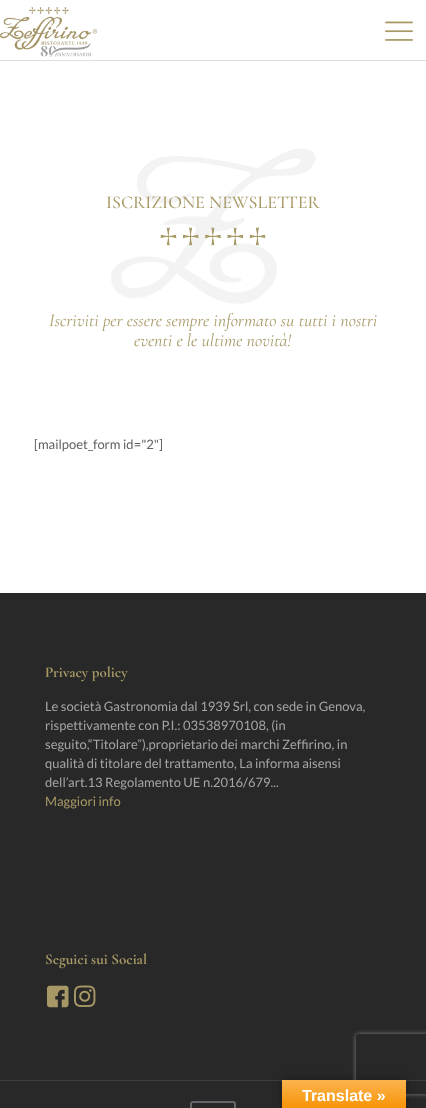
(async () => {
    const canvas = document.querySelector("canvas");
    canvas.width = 426;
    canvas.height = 1108;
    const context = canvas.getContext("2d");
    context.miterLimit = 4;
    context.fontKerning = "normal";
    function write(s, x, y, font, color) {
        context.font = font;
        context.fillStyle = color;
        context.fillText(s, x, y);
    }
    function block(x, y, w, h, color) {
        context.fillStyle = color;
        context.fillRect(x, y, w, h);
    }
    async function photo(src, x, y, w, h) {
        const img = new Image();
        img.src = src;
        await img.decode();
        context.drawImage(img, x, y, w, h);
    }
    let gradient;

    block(0, 0, 426, 1108, "rgb(255, 255, 255)");
    await photo("media/1.png", 0, 7, 97, 50);
    block(0, 60, 426, 1, "rgb(222, 222, 222)");
    await photo("media/2.png", 385, 21, 28, 20);
    await photo("media/3.png", 111, 148, 205, 156);
    write("ISCRIZIONE NEWSLETTER", 106, 208, "500 18px Cormorant", "rgb(167, 153, 102)");
    await photo("media/4.png", 160, 227, 106, 19);
    write("Iscriviti per essere sempre informato su tutti i nostri", 49, 326, "italic 18px Cormorant", "rgb(167, 153, 102)");
    write("eventi e le ultime novità!", 134, 346, "italic 18px Cormorant", "rgb(167, 153, 102)");
    write("[mailpoet_form id=\"2\"]", 34, 449, "13px Lato", "rgb(98, 98, 98)");
    block(0, 593, 426, 515, "rgb(40, 40, 40)");
    write("Privacy policy", 45, 677, "bold 15px Cormorant", "rgb(167, 153, 102)");
    write("Le società Gastronomia dal 1939 Srl, con sede in Genova,", 45, 711, "13px Lato", "rgb(165, 165, 165)");
    write("rispettivamente con P.I.: 03538970108, (in", 45, 730, "13px Lato", "rgb(165, 165, 165)");
    write("seguito,“Titolare”),proprietario dei marchi Zeffirino, in", 45, 749, "13px Lato", "rgb(165, 165, 165)");
    write("qualità di titolare del trattamento, La informa aisensi", 45, 768, "13px Lato", "rgb(165, 165, 165)");
    write("dell’art.13 Regolamento UE n.2016/679...", 45, 787, "13px Lato", "rgb(165, 165, 165)");
    write("Maggiori info", 45, 806, "13px Lato", "rgb(167, 153, 102)");
    write("Seguici sui Social", 45, 964, "bold 15px Cormorant", "rgb(167, 153, 102)");
    await photo("media/5.png", 47, 985, 22, 23);
    await photo("media/6.png", 74, 985, 22, 22);
    block(0, 1080, 426, 1, "rgb(62, 62, 62)");
    context.beginPath();
    context.roundRect(191, 1102, 44, 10, 2);
    context.strokeStyle = "rgb(101, 102, 108)";
    context.lineWidth = 2;
    context.stroke();
    context.fillStyle = "rgba(0, 0, 0, 0.3)";
    context.filter = "blur(4.5px)";
    context.beginPath();
    context.rect(282, 1080, 124, 28);
    context.fill();
    context.filter = "none";
    context.save();
    context.beginPath();
    context.moveTo(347, 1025);
    context.lineTo(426, 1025);
    context.lineTo(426, 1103);
    context.lineTo(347, 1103);
    context.closePath();
    context.moveTo(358, 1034);
    context.lineTo(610, 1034);
    context.bezierCurveTo(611, 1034, 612, 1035, 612, 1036);
    context.lineTo(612, 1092);
    context.bezierCurveTo(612, 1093, 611, 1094, 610, 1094);
    context.lineTo(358, 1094);
    context.bezierCurveTo(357, 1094, 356, 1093, 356, 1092);
    context.lineTo(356, 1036);
    context.bezierCurveTo(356, 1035, 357, 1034, 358, 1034);
    context.closePath();
    context.clip("evenodd");
    context.fillStyle = "rgb(128, 128, 128)";
    context.filter = "blur(2.5px)";
    context.beginPath();
    context.roundRect(356, 1034, 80, 60, 2);
    context.fill();
    context.filter = "none";
    context.restore();
    gradient = context.createLinearGradient(344, 1080, 344, 1108);
    gradient.addColorStop(0, "rgb(251, 180, 80)");
    gradient.addColorStop(1, "rgb(248, 148, 6)");
    context.fillStyle = gradient;
    context.fillRect(282, 1080, 124, 28);
    write("Translate »", 302, 1101, "bold 16px Liberation Sans", "rgb(255, 255, 255)");
})();
